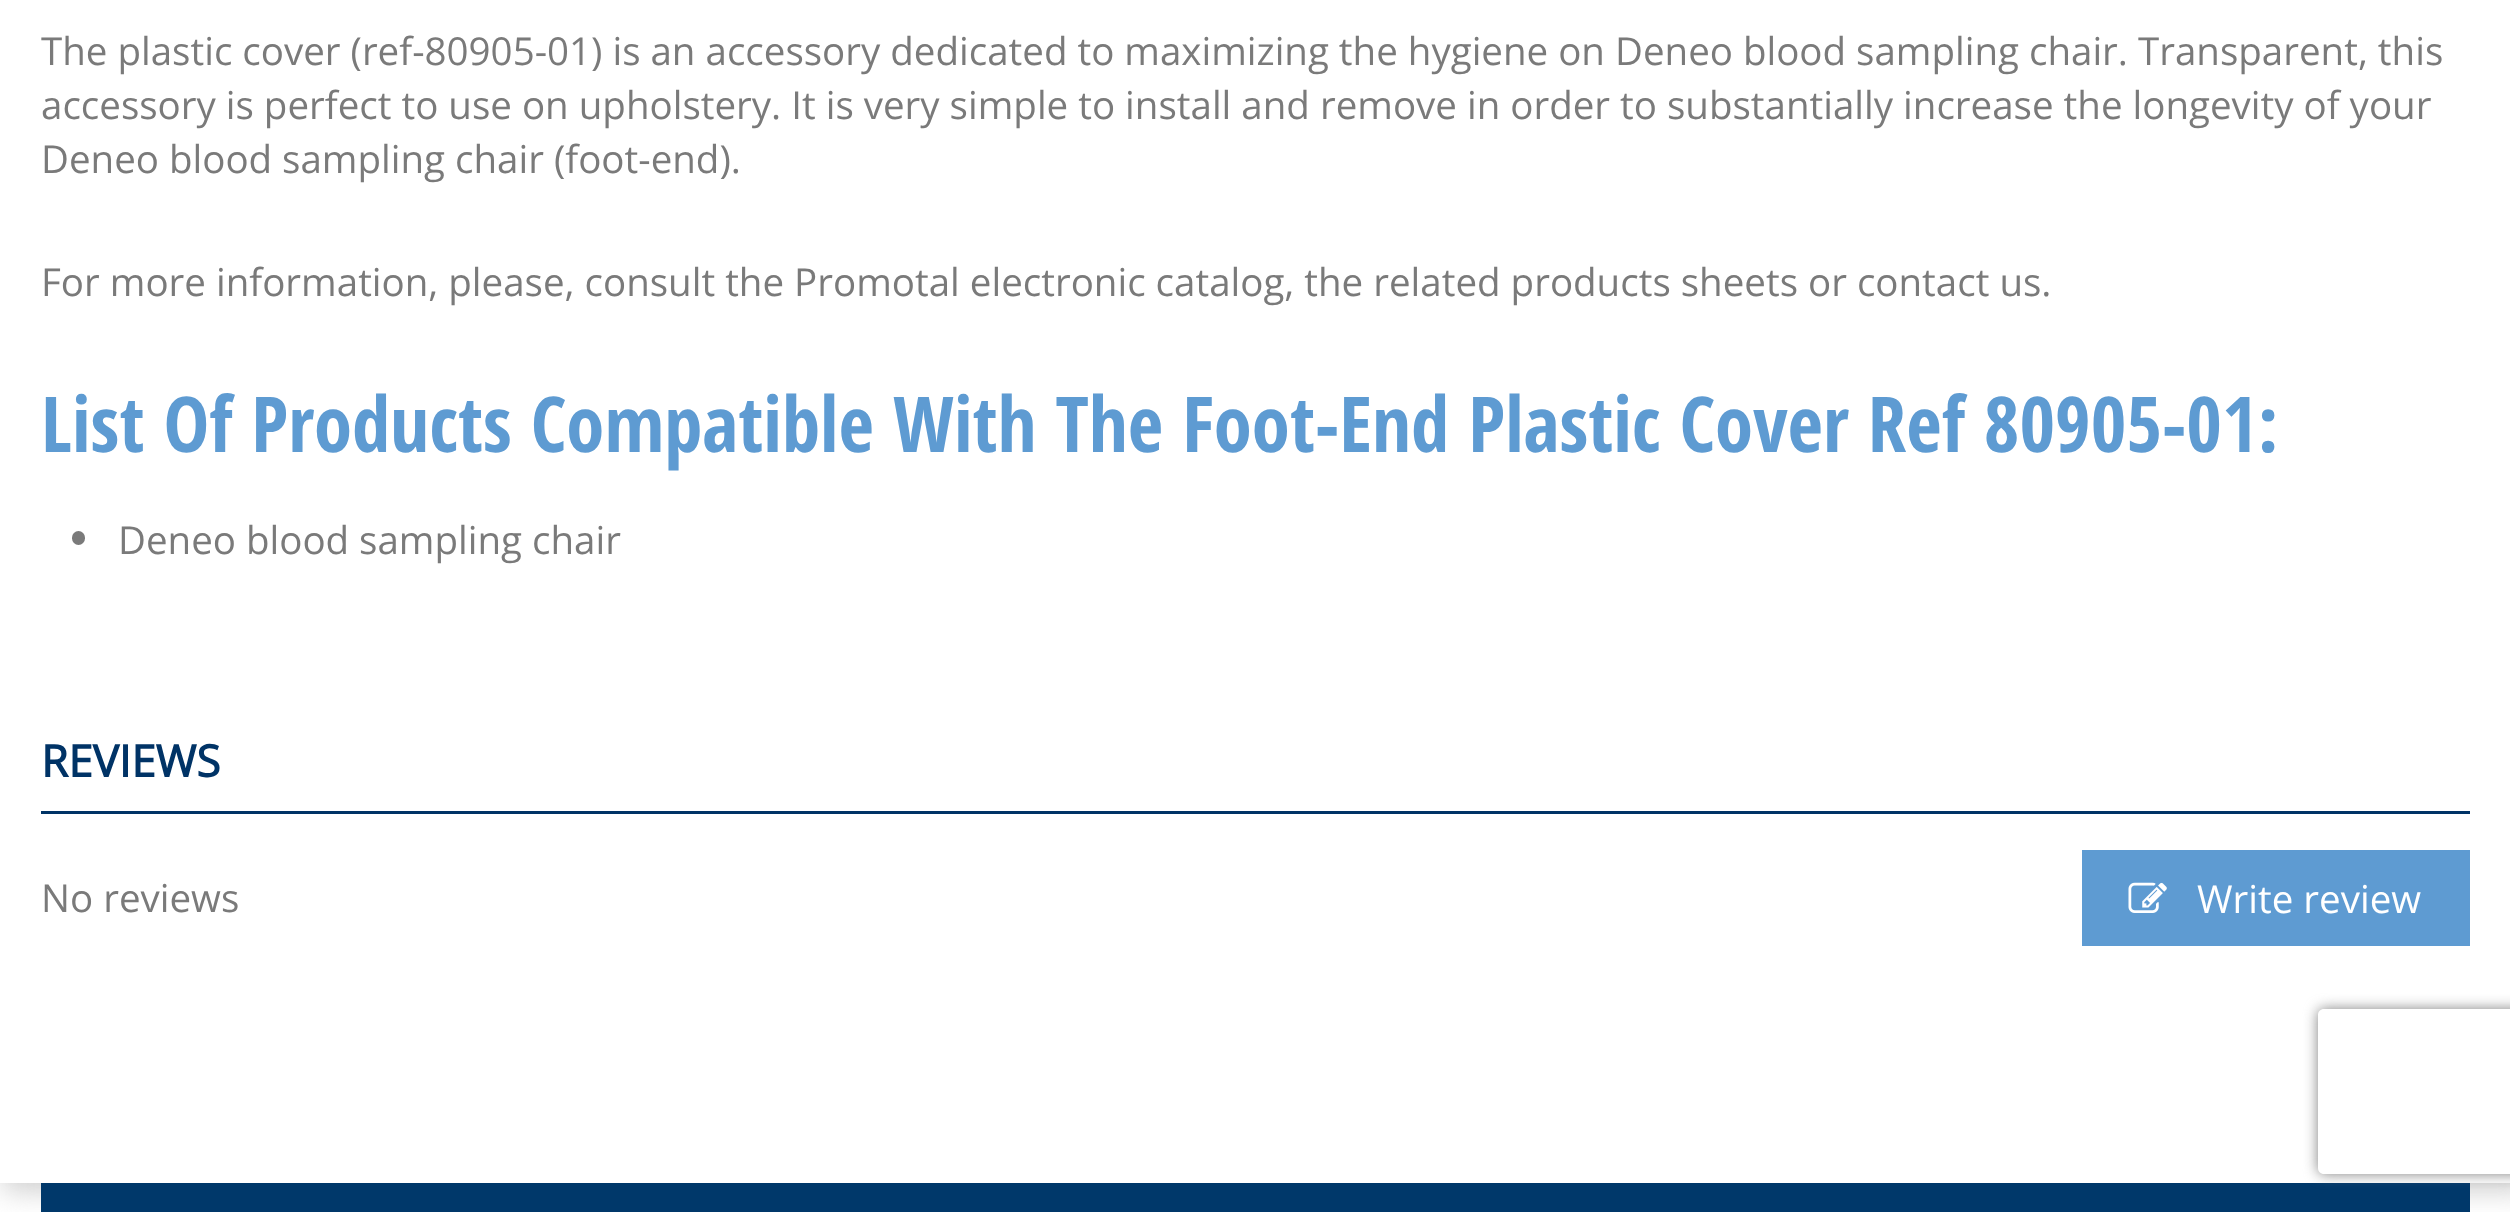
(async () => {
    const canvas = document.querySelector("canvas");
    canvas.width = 2510;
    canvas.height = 1212;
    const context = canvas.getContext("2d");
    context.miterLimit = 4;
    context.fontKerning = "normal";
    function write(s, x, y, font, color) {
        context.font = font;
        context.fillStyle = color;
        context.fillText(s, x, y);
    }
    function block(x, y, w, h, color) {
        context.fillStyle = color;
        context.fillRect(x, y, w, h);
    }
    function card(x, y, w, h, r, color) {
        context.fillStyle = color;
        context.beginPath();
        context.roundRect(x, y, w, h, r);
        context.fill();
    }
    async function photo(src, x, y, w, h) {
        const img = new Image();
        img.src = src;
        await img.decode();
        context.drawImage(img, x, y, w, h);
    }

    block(0, 0, 2510, 1212, "rgb(255, 255, 255)");
    context.save();
    context.beginPath();
    context.moveTo(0, 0);
    context.lineTo(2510, 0);
    context.lineTo(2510, 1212);
    context.lineTo(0, 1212);
    context.closePath();
    context.moveTo(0, -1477);
    context.lineTo(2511, -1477);
    context.lineTo(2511, 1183);
    context.lineTo(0, 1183);
    context.closePath();
    context.clip("evenodd");
    context.fillStyle = "rgba(180, 180, 180, 0.66)";
    context.filter = "blur(14px)";
    context.beginPath();
    context.rect(3, -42, 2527, 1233);
    context.fill();
    context.filter = "none";
    context.restore();
    write("The plastic cover (ref-80905-01) is an accessory dedicated to maximizing the hygiene on Deneo blood sampling chair. Transparent, this", 41, 65, "38.5px Open Sans", "rgb(122, 122, 122)");
    write("accessory is perfect to use on upholstery. It is very simple to install and remove in order to substantially increase the longevity of your", 41, 119, "38.5px Open Sans", "rgb(122, 122, 122)");
    write("Deneo blood sampling chair (foot-end).", 41, 173, "38.5px Open Sans", "rgb(122, 122, 122)");
    write("For more information, please, consult the Promotal electronic catalog, the related products sheets or contact us.", 41, 296, "38.5px Open Sans", "rgb(122, 122, 122)");
    write("List Of Products Compatible With The Foot-End Plastic Cover Ref 80905-01:", 41, 452, "bold 77px Open Sans Condensed", "rgb(94, 155, 210)");
    card(72, 531, 13, 14, 6.5, "rgb(122, 122, 122)");
    write("Deneo blood sampling chair", 118, 554, "38.5px Open Sans", "rgb(122, 122, 122)");
    block(41, 811, 2429, 3, "rgb(0, 51, 102)");
    write("REVIEWS", 41, 777, "bold 44px Open Sans", "rgb(0, 51, 102)");
    write("No reviews", 41, 912, "38.5px Open Sans", "rgb(122, 122, 122)");
    block(2082, 850, 388, 96, "rgb(94, 155, 210)");
    await photo("media/1.png", 2128, 882, 39, 31);
    write("Write review", 2197, 913, "38.5px Open Sans", "rgb(255, 255, 255)");
    block(41, 1183, 2429, 29, "rgb(0, 56, 106)");
    context.save();
    context.beginPath();
    context.moveTo(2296, 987);
    context.lineTo(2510, 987);
    context.lineTo(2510, 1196);
    context.lineTo(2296, 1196);
    context.closePath();
    context.moveTo(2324, 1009);
    context.lineTo(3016, 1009);
    context.bezierCurveTo(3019.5, 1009, 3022, 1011.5, 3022, 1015);
    context.lineTo(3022, 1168);
    context.bezierCurveTo(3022, 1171.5, 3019.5, 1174, 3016, 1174);
    context.lineTo(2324, 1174);
    context.bezierCurveTo(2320.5, 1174, 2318, 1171.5, 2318, 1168);
    context.lineTo(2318, 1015);
    context.bezierCurveTo(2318, 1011.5, 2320.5, 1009, 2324, 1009);
    context.closePath();
    context.clip("evenodd");
    context.fillStyle = "rgb(128, 128, 128)";
    context.filter = "blur(7px)";
    context.beginPath();
    context.roundRect(2318, 1009, 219, 165, 6);
    context.fill();
    context.filter = "none";
    context.restore();
})();
